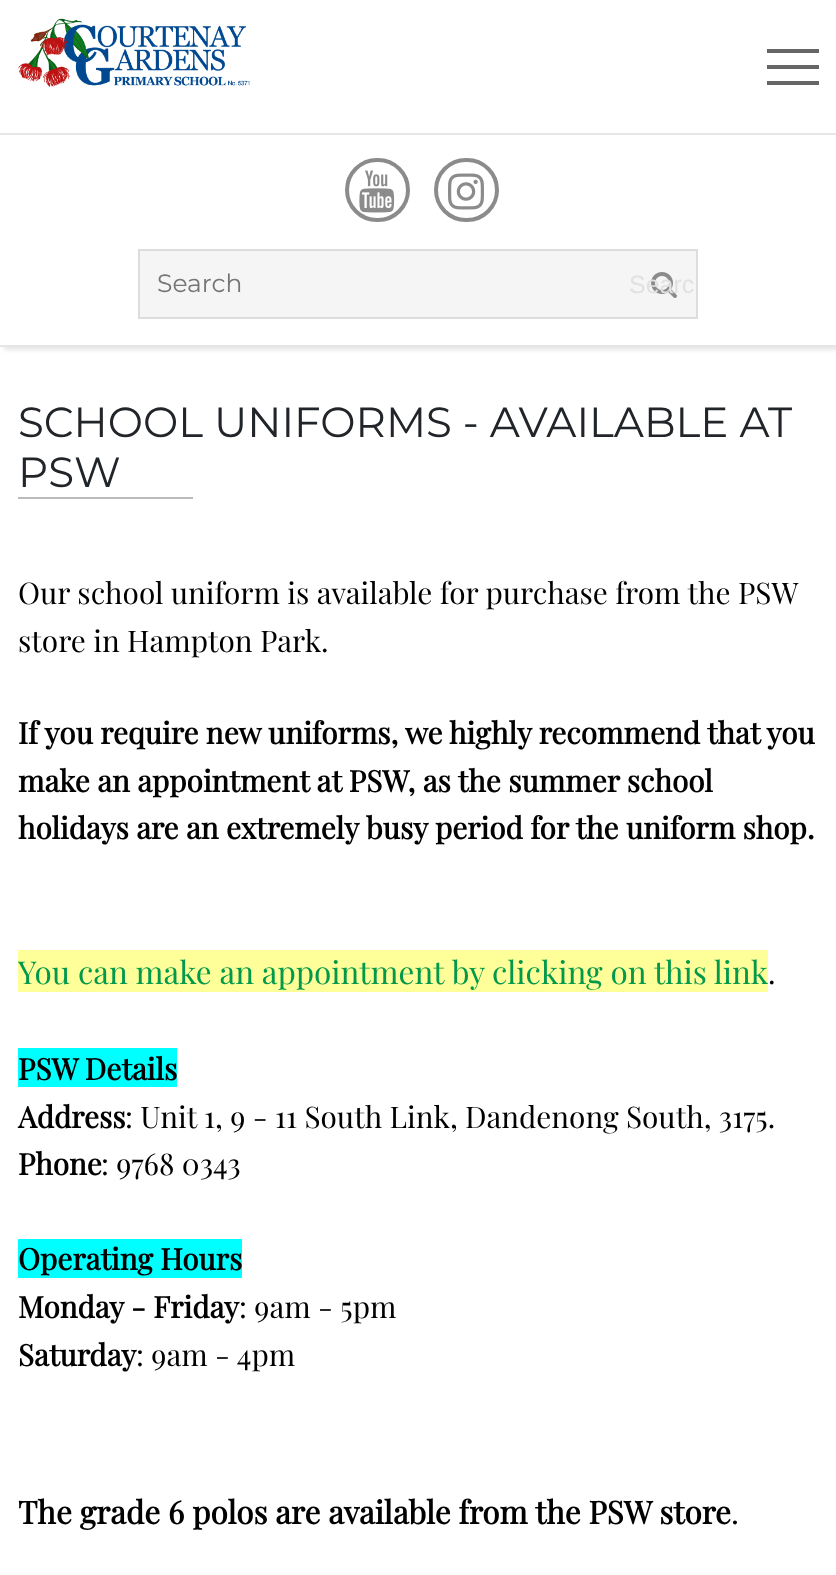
(async () => {
    const canvas = document.querySelector("canvas");
    canvas.width = 836;
    canvas.height = 1575;
    const context = canvas.getContext("2d");
    context.miterLimit = 4;
    context.fontKerning = "normal";
    function write(s, x, y, font, color) {
        context.font = font;
        context.fillStyle = color;
        context.fillText(s, x, y);
    }
    function block(x, y, w, h, color) {
        context.fillStyle = color;
        context.fillRect(x, y, w, h);
    }
    async function photo(src, x, y, w, h) {
        const img = new Image();
        img.src = src;
        await img.decode();
        context.drawImage(img, x, y, w, h);
    }

    block(0, 0, 836, 1575, "rgb(255, 255, 255)");
    context.fillStyle = "rgba(0, 0, 0, 0.1)";
    context.filter = "blur(2px)";
    context.beginPath();
    context.rect(4, 4, 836, 346);
    context.fill();
    context.filter = "none";
    block(1, 1, 835, 344, "rgb(255, 255, 255)");
    block(0, 133, 836, 2, "rgb(230, 230, 230)");
    block(767, 49, 52, 4, "rgb(102, 102, 102)");
    block(767, 81, 52, 4, "rgb(102, 102, 102)");
    block(767, 65, 52, 4, "rgb(102, 102, 102)");
    block(0, 345, 7, 2, "rgb(230, 230, 230)");
    await photo("media/1.png", 18, 18, 232, 69);
    context.beginPath();
    context.roundRect(347, 160, 61, 60, 30);
    context.strokeStyle = "rgb(139, 139, 139)";
    context.lineWidth = 4;
    context.stroke();
    await photo("media/2.png", 359, 170, 36, 43);
    context.beginPath();
    context.roundRect(436, 160, 61, 60, 30);
    context.stroke();
    await photo("media/3.png", 448, 173, 36, 37);
    context.fillStyle = "rgb(245, 245, 245)";
    context.beginPath();
    context.rect(139, 250, 558, 68);
    context.fill();
    context.strokeStyle = "rgb(221, 221, 221)";
    context.lineWidth = 2;
    context.stroke();
    await photo("media/4.png", 651, 272, 26, 26);
    write("Search", 157, 292, "25px Montserrat", "rgb(117, 117, 117)");
    write("Searc", 629, 293, "25px Liberation Sans", "rgb(225, 225, 225)");
    write("SCHOOL UNIFORMS - AVAILABLE AT", 18, 437, "42px Montserrat", "rgb(33, 37, 41)");
    write("PSW", 18, 487, "42px Montserrat", "rgb(33, 37, 41)");
    block(18, 497, 175, 2, "rgb(187, 187, 187)");
    write("Our school uniform is available for purchase from the PSW", 18, 604, "29.75px Playfair Display", "rgb(0, 0, 0)");
    write("store in Hampton Park.", 18, 652, "29.75px Playfair Display", "rgb(0, 0, 0)");
    write("If you require new uniforms, we highly recommend that you", 18, 744, "bold 29.75px Playfair Display", "rgb(0, 0, 0)");
    write("make an appointment at PSW, as the summer school", 18, 792, "bold 29.75px Playfair Display", "rgb(0, 0, 0)");
    write("holidays are an extremely busy period for the uniform shop.", 18, 839, "bold 29.75px Playfair Display", "rgb(0, 0, 0)");
    block(18, 950, 750, 42, "rgb(255, 255, 153)");
    write("You can make an appointment by clicking on this link", 18, 984, "31.5px Playfair Display", "rgb(3, 153, 75)");
    write(".", 768, 984, "29.75px Playfair Display", "rgb(0, 0, 0)");
    block(18, 1048, 159, 39, "rgb(0, 255, 255)");
    write("PSW Details", 18, 1080, "bold 29.75px Playfair Display", "rgb(0, 0, 0)");
    write("Address", 18, 1128, "bold 29.75px Playfair Display", "rgb(0, 0, 0)");
    write(": Unit 1, 9 - 11 South Link, Dandenong South, 3175.", 125, 1128, "29.75px Playfair Display", "rgb(0, 0, 0)");
    write("Phone", 18, 1175, "bold 29.75px Playfair Display", "rgb(0, 0, 0)");
    write(": 9768 0343", 101, 1175, "29.75px Playfair Display", "rgb(0, 0, 0)");
    block(18, 1239, 224, 39, "rgb(0, 255, 255)");
    write("Operating Hours", 18, 1270, "bold 29.75px Playfair Display", "rgb(0, 0, 0)");
    write("Monday - Friday", 18, 1318, "bold 29.75px Playfair Display", "rgb(0, 0, 0)");
    write(": 9am - 5pm", 239, 1318, "29.75px Playfair Display", "rgb(0, 0, 0)");
    write("Saturday", 18, 1366, "bold 29.75px Playfair Display", "rgb(0, 0, 0)");
    write(": 9am - 4pm", 136, 1366, "29.75px Playfair Display", "rgb(0, 0, 0)");
    write("The grade 6 polos are available from the PSW store", 18, 1524, "bold 31.5px Playfair Display", "rgb(0, 0, 0)");
    write(".", 731, 1524, "31.5px Playfair Display", "rgb(0, 0, 0)");
})();
